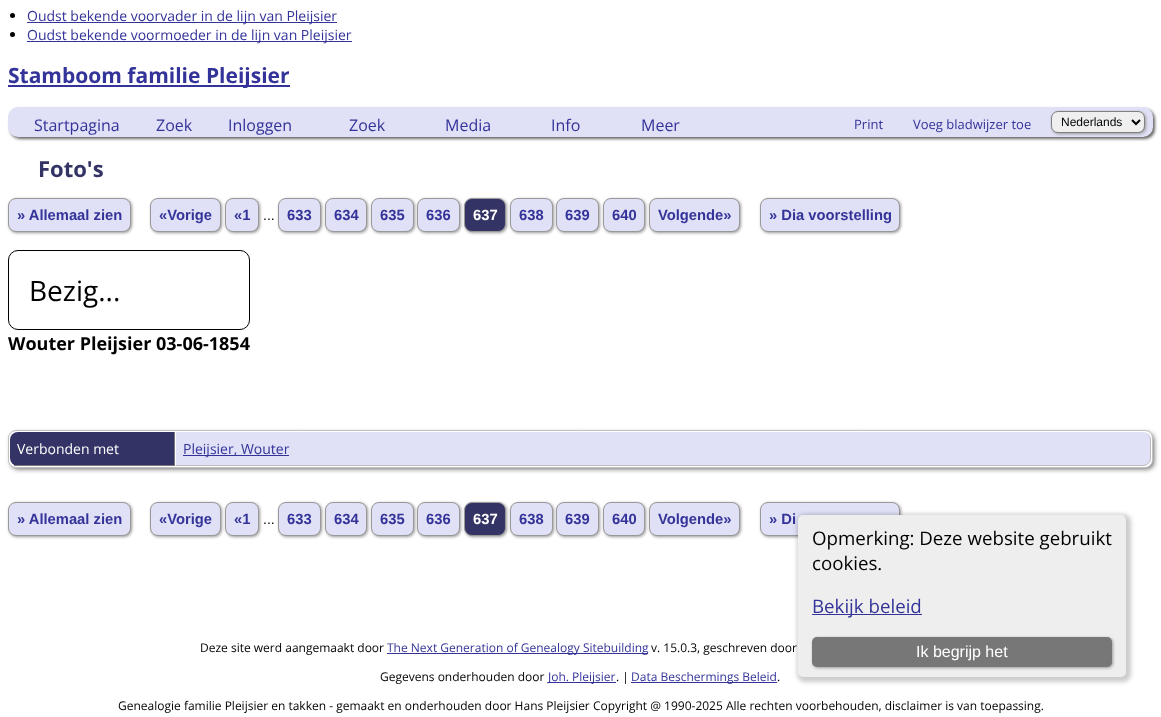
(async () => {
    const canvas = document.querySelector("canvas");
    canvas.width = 1161;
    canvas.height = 717;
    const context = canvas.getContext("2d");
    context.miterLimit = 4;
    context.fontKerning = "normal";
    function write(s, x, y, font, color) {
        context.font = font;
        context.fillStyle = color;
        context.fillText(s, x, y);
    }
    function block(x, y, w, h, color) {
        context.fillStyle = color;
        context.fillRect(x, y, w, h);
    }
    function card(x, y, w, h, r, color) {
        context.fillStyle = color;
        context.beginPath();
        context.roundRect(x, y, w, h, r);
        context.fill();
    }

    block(0, 0, 1161, 717, "rgb(255, 255, 255)");
    context.fillStyle = "rgb(0, 0, 0)";
    context.beginPath();
    context.arc(12.5, 15.5, 2.5, 0, Math.PI * 2);
    context.fill();
    block(27, 22, 310, 1, "rgb(51, 51, 153)");
    write("Oudst bekende voorvader in de lijn van Pleijsier", 27, 21, "14px Open Sans", "rgb(51, 51, 153)");
    context.fillStyle = "rgb(0, 0, 0)";
    context.beginPath();
    context.arc(12.5, 34.5, 2.5, 0, Math.PI * 2);
    context.fill();
    block(27, 41, 325, 1, "rgb(51, 51, 153)");
    write("Oudst bekende voormoeder in de lijn van Pleijsier", 27, 40, "14px Open Sans", "rgb(51, 51, 153)");
    block(8, 85, 282, 2, "rgb(51, 51, 153)");
    write("Stamboom familie Pleijsier", 8, 83, "bold 21px Open Sans", "rgb(51, 51, 153)");
    context.fillStyle = "rgb(102, 102, 102)";
    context.filter = "blur(1.5px)";
    context.beginPath();
    context.roundRect(10, 109, 1145, 30, 10);
    context.fill();
    context.filter = "none";
    card(8, 107, 1145, 30, 10, "rgb(224, 224, 247)");
    write("Startpagina", 34, 131, "16px Open Sans", "rgb(51, 51, 153)");
    write("Zoek", 156, 131, "16px Open Sans", "rgb(51, 51, 153)");
    write("Inloggen", 228, 131, "16px Open Sans", "rgb(51, 51, 153)");
    write("Zoek", 349, 131, "16px Open Sans", "rgb(51, 51, 153)");
    write("Media", 445, 131, "16px Open Sans", "rgb(51, 51, 153)");
    write("Info", 551, 131, "16px Open Sans", "rgb(51, 51, 153)");
    write("Meer", 641, 131, "16px Open Sans", "rgb(51, 51, 153)");
    write("Print", 854, 129, "13px Open Sans", "rgb(51, 51, 153)");
    write("Voeg bladwijzer toe", 913, 129, "13px Open Sans", "rgb(51, 51, 153)");
    context.fillStyle = "rgb(153, 153, 153)";
    context.filter = "blur(1.5px)";
    context.beginPath();
    context.roundRect(1052, 112, 94, 22, 7);
    context.fill();
    context.filter = "none";
    context.fillStyle = "rgb(239, 239, 239)";
    context.beginPath();
    context.roundRect(1051.5, 111.5, 93, 21, 6.5);
    context.fill();
    context.strokeStyle = "rgb(128, 128, 128)";
    context.stroke();
    context.beginPath();
    context.moveTo(1132, 120);
    context.lineTo(1136, 124);
    context.lineTo(1140, 120);
    context.strokeStyle = "rgb(0, 0, 0)";
    context.lineWidth = 2;
    context.stroke();
    write("Nederlands", 1061, 126, "12px Liberation Sans", "rgb(0, 0, 0)");
    write("Foto's", 38, 177, "bold 22px Open Sans", "rgb(51, 51, 102)");
    context.fillStyle = "rgb(153, 153, 153)";
    context.filter = "blur(1.5px)";
    context.beginPath();
    context.roundRect(9, 199, 123, 34, 8);
    context.fill();
    context.filter = "none";
    context.fillStyle = "rgb(224, 224, 247)";
    context.beginPath();
    context.roundRect(8.5, 198.5, 122, 33, 7.5);
    context.fill();
    context.strokeStyle = "rgb(153, 153, 153)";
    context.lineWidth = 1;
    context.stroke();
    write("» Allemaal zien", 17, 220, "bold 14.75px Liberation Sans", "rgb(51, 51, 153)");
    context.fillStyle = "rgb(153, 153, 153)";
    context.filter = "blur(1.5px)";
    context.beginPath();
    context.roundRect(151, 199, 71, 34, 8);
    context.fill();
    context.filter = "none";
    context.fillStyle = "rgb(224, 224, 247)";
    context.beginPath();
    context.roundRect(150.5, 198.5, 70, 33, 7.5);
    context.fill();
    context.stroke();
    write("«Vorige", 159, 220, "bold 14.75px Liberation Sans", "rgb(51, 51, 153)");
    context.fillStyle = "rgb(153, 153, 153)";
    context.filter = "blur(1.5px)";
    context.beginPath();
    context.roundRect(226, 199, 34, 34, 8);
    context.fill();
    context.filter = "none";
    context.fillStyle = "rgb(224, 224, 247)";
    context.beginPath();
    context.roundRect(225.5, 198.5, 33, 33, 7.5);
    context.fill();
    context.stroke();
    write("«1", 234, 220, "bold 14.75px Liberation Sans", "rgb(51, 51, 153)");
    write("...", 263, 220, "14px Liberation Sans", "rgb(0, 0, 0)");
    context.fillStyle = "rgb(153, 153, 153)";
    context.filter = "blur(1.5px)";
    context.beginPath();
    context.roundRect(279, 199, 43, 34, 8);
    context.fill();
    context.filter = "none";
    context.fillStyle = "rgb(224, 224, 247)";
    context.beginPath();
    context.roundRect(278.5, 198.5, 42, 33, 7.5);
    context.fill();
    context.stroke();
    write("633", 287, 220, "bold 14.75px Liberation Sans", "rgb(51, 51, 153)");
    context.fillStyle = "rgb(153, 153, 153)";
    context.filter = "blur(1.5px)";
    context.beginPath();
    context.roundRect(326, 199, 42, 34, 8);
    context.fill();
    context.filter = "none";
    context.fillStyle = "rgb(224, 224, 247)";
    context.beginPath();
    context.roundRect(325.5, 198.5, 41, 33, 7.5);
    context.fill();
    context.stroke();
    write("634", 334, 220, "bold 14.75px Liberation Sans", "rgb(51, 51, 153)");
    context.fillStyle = "rgb(153, 153, 153)";
    context.filter = "blur(1.5px)";
    context.beginPath();
    context.roundRect(372, 199, 43, 34, 8);
    context.fill();
    context.filter = "none";
    context.fillStyle = "rgb(224, 224, 247)";
    context.beginPath();
    context.roundRect(371.5, 198.5, 42, 33, 7.5);
    context.fill();
    context.stroke();
    write("635", 380, 220, "bold 14.75px Liberation Sans", "rgb(51, 51, 153)");
    context.fillStyle = "rgb(153, 153, 153)";
    context.filter = "blur(1.5px)";
    context.beginPath();
    context.roundRect(418, 199, 43, 34, 8);
    context.fill();
    context.filter = "none";
    context.fillStyle = "rgb(224, 224, 247)";
    context.beginPath();
    context.roundRect(417.5, 198.5, 42, 33, 7.5);
    context.fill();
    context.stroke();
    write("636", 426, 220, "bold 14.75px Liberation Sans", "rgb(51, 51, 153)");
    context.fillStyle = "rgb(153, 153, 153)";
    context.filter = "blur(1.5px)";
    context.beginPath();
    context.roundRect(465, 199, 42, 34, 8);
    context.fill();
    context.filter = "none";
    context.fillStyle = "rgb(51, 51, 102)";
    context.beginPath();
    context.roundRect(464.5, 198.5, 41, 33, 7.5);
    context.fill();
    context.stroke();
    write("637", 473, 220, "bold 14.75px Liberation Sans", "rgb(255, 255, 255)");
    context.fillStyle = "rgb(153, 153, 153)";
    context.filter = "blur(1.5px)";
    context.beginPath();
    context.roundRect(511, 199, 43, 34, 8);
    context.fill();
    context.filter = "none";
    context.fillStyle = "rgb(224, 224, 247)";
    context.beginPath();
    context.roundRect(510.5, 198.5, 42, 33, 7.5);
    context.fill();
    context.stroke();
    write("638", 519, 220, "bold 14.75px Liberation Sans", "rgb(51, 51, 153)");
    context.fillStyle = "rgb(153, 153, 153)";
    context.filter = "blur(1.5px)";
    context.beginPath();
    context.roundRect(557, 199, 43, 34, 8);
    context.fill();
    context.filter = "none";
    context.fillStyle = "rgb(224, 224, 247)";
    context.beginPath();
    context.roundRect(556.5, 198.5, 42, 33, 7.5);
    context.fill();
    context.stroke();
    write("639", 565, 220, "bold 14.75px Liberation Sans", "rgb(51, 51, 153)");
    context.fillStyle = "rgb(153, 153, 153)";
    context.filter = "blur(1.5px)";
    context.beginPath();
    context.roundRect(604, 199, 42, 34, 8);
    context.fill();
    context.filter = "none";
    context.fillStyle = "rgb(224, 224, 247)";
    context.beginPath();
    context.roundRect(603.5, 198.5, 41, 33, 7.5);
    context.fill();
    context.stroke();
    write("640", 612, 220, "bold 14.75px Liberation Sans", "rgb(51, 51, 153)");
    context.fillStyle = "rgb(153, 153, 153)";
    context.filter = "blur(1.5px)";
    context.beginPath();
    context.roundRect(650, 199, 91, 34, 8);
    context.fill();
    context.filter = "none";
    context.fillStyle = "rgb(224, 224, 247)";
    context.beginPath();
    context.roundRect(649.5, 198.5, 90, 33, 7.5);
    context.fill();
    context.stroke();
    write("Volgende»", 658, 220, "bold 14.75px Liberation Sans", "rgb(51, 51, 153)");
    context.fillStyle = "rgb(153, 153, 153)";
    context.filter = "blur(1.5px)";
    context.beginPath();
    context.roundRect(761, 199, 140, 34, 8);
    context.fill();
    context.filter = "none";
    context.fillStyle = "rgb(224, 224, 247)";
    context.beginPath();
    context.roundRect(760.5, 198.5, 139, 33, 7.5);
    context.fill();
    context.stroke();
    write("» Dia voorstelling", 769, 220, "bold 14.75px Liberation Sans", "rgb(51, 51, 153)");
    context.beginPath();
    context.roundRect(8.5, 250.5, 241, 79, 9.5);
    context.strokeStyle = "rgb(0, 0, 0)";
    context.stroke();
    write("Bezig...", 29, 301, "28px Open Sans", "rgb(0, 0, 0)");
    write("Wouter Pleijsier 03-06-1854", 8, 350, "bold 18px Open Sans", "rgb(0, 0, 0)");
    context.fillStyle = "rgb(102, 102, 102)";
    context.filter = "blur(2.5px)";
    context.beginPath();
    context.roundRect(11, 433, 1143, 36, 7);
    context.fill();
    context.filter = "none";
    context.fillStyle = "rgb(255, 255, 255)";
    context.beginPath();
    context.roundRect(8.5, 430.5, 1144, 37, 7.5);
    context.fill();
    context.strokeStyle = "rgb(192, 192, 192)";
    context.stroke();
    context.fillStyle = "rgb(51, 51, 102)";
    context.beginPath();
    context.roundRect(10, 432, 165, 34, [8, 0, 0, 8]);
    context.fill();
    block(174, 432, 1, 34, "rgb(119, 119, 119)");
    block(14, 465, 161, 1, "rgb(119, 119, 119)");
    write("Verbonden met", 17, 454, "14px Open Sans", "rgb(255, 255, 255)");
    context.fillStyle = "rgb(224, 224, 247)";
    context.beginPath();
    context.roundRect(176, 432, 975, 34, [0, 8, 8, 0]);
    context.fill();
    context.fillStyle = "rgb(187, 187, 187)";
    context.beginPath();
    context.moveTo(176, 432);
    context.lineTo(1143, 432);
    context.bezierCurveTo(1147, 432, 1151, 436, 1151, 440);
    context.lineTo(1151, 458);
    context.bezierCurveTo(1151, 462, 1147, 466, 1143, 466);
    context.lineTo(176, 466);
    context.closePath();
    context.moveTo(176, 432);
    context.lineTo(1143, 432);
    context.bezierCurveTo(1147, 432, 1150, 436, 1150, 440);
    context.lineTo(1150, 458);
    context.bezierCurveTo(1150, 462, 1147, 465, 1143, 465);
    context.lineTo(176, 465);
    context.closePath();
    context.fill("evenodd");
    block(183, 455, 106, 1, "rgb(51, 51, 153)");
    write("Pleijsier, Wouter", 183, 454, "14px Open Sans", "rgb(51, 51, 153)");
    context.fillStyle = "rgb(153, 153, 153)";
    context.filter = "blur(1.5px)";
    context.beginPath();
    context.roundRect(9, 503, 123, 34, 8);
    context.fill();
    context.filter = "none";
    context.fillStyle = "rgb(224, 224, 247)";
    context.beginPath();
    context.roundRect(8.5, 502.5, 122, 33, 7.5);
    context.fill();
    context.strokeStyle = "rgb(153, 153, 153)";
    context.stroke();
    write("» Allemaal zien", 17, 524, "bold 14.75px Liberation Sans", "rgb(51, 51, 153)");
    context.fillStyle = "rgb(153, 153, 153)";
    context.filter = "blur(1.5px)";
    context.beginPath();
    context.roundRect(151, 503, 71, 34, 8);
    context.fill();
    context.filter = "none";
    context.fillStyle = "rgb(224, 224, 247)";
    context.beginPath();
    context.roundRect(150.5, 502.5, 70, 33, 7.5);
    context.fill();
    context.stroke();
    write("«Vorige", 159, 524, "bold 14.75px Liberation Sans", "rgb(51, 51, 153)");
    context.fillStyle = "rgb(153, 153, 153)";
    context.filter = "blur(1.5px)";
    context.beginPath();
    context.roundRect(226, 503, 34, 34, 8);
    context.fill();
    context.filter = "none";
    context.fillStyle = "rgb(224, 224, 247)";
    context.beginPath();
    context.roundRect(225.5, 502.5, 33, 33, 7.5);
    context.fill();
    context.stroke();
    write("«1", 234, 524, "bold 14.75px Liberation Sans", "rgb(51, 51, 153)");
    write("...", 263, 524, "14px Liberation Sans", "rgb(0, 0, 0)");
    context.fillStyle = "rgb(153, 153, 153)";
    context.filter = "blur(1.5px)";
    context.beginPath();
    context.roundRect(279, 503, 43, 34, 8);
    context.fill();
    context.filter = "none";
    context.fillStyle = "rgb(224, 224, 247)";
    context.beginPath();
    context.roundRect(278.5, 502.5, 42, 33, 7.5);
    context.fill();
    context.stroke();
    write("633", 287, 524, "bold 14.75px Liberation Sans", "rgb(51, 51, 153)");
    context.fillStyle = "rgb(153, 153, 153)";
    context.filter = "blur(1.5px)";
    context.beginPath();
    context.roundRect(326, 503, 42, 34, 8);
    context.fill();
    context.filter = "none";
    context.fillStyle = "rgb(224, 224, 247)";
    context.beginPath();
    context.roundRect(325.5, 502.5, 41, 33, 7.5);
    context.fill();
    context.stroke();
    write("634", 334, 524, "bold 14.75px Liberation Sans", "rgb(51, 51, 153)");
    context.fillStyle = "rgb(153, 153, 153)";
    context.filter = "blur(1.5px)";
    context.beginPath();
    context.roundRect(372, 503, 43, 34, 8);
    context.fill();
    context.filter = "none";
    context.fillStyle = "rgb(224, 224, 247)";
    context.beginPath();
    context.roundRect(371.5, 502.5, 42, 33, 7.5);
    context.fill();
    context.stroke();
    write("635", 380, 524, "bold 14.75px Liberation Sans", "rgb(51, 51, 153)");
    context.fillStyle = "rgb(153, 153, 153)";
    context.filter = "blur(1.5px)";
    context.beginPath();
    context.roundRect(418, 503, 43, 34, 8);
    context.fill();
    context.filter = "none";
    context.fillStyle = "rgb(224, 224, 247)";
    context.beginPath();
    context.roundRect(417.5, 502.5, 42, 33, 7.5);
    context.fill();
    context.stroke();
    write("636", 426, 524, "bold 14.75px Liberation Sans", "rgb(51, 51, 153)");
    context.fillStyle = "rgb(153, 153, 153)";
    context.filter = "blur(1.5px)";
    context.beginPath();
    context.roundRect(465, 503, 42, 34, 8);
    context.fill();
    context.filter = "none";
    context.fillStyle = "rgb(51, 51, 102)";
    context.beginPath();
    context.roundRect(464.5, 502.5, 41, 33, 7.5);
    context.fill();
    context.stroke();
    write("637", 473, 524, "bold 14.75px Liberation Sans", "rgb(255, 255, 255)");
    context.fillStyle = "rgb(153, 153, 153)";
    context.filter = "blur(1.5px)";
    context.beginPath();
    context.roundRect(511, 503, 43, 34, 8);
    context.fill();
    context.filter = "none";
    context.fillStyle = "rgb(224, 224, 247)";
    context.beginPath();
    context.roundRect(510.5, 502.5, 42, 33, 7.5);
    context.fill();
    context.stroke();
    write("638", 519, 524, "bold 14.75px Liberation Sans", "rgb(51, 51, 153)");
    context.fillStyle = "rgb(153, 153, 153)";
    context.filter = "blur(1.5px)";
    context.beginPath();
    context.roundRect(557, 503, 43, 34, 8);
    context.fill();
    context.filter = "none";
    context.fillStyle = "rgb(224, 224, 247)";
    context.beginPath();
    context.roundRect(556.5, 502.5, 42, 33, 7.5);
    context.fill();
    context.stroke();
    write("639", 565, 524, "bold 14.75px Liberation Sans", "rgb(51, 51, 153)");
    context.fillStyle = "rgb(153, 153, 153)";
    context.filter = "blur(1.5px)";
    context.beginPath();
    context.roundRect(604, 503, 42, 34, 8);
    context.fill();
    context.filter = "none";
    context.fillStyle = "rgb(224, 224, 247)";
    context.beginPath();
    context.roundRect(603.5, 502.5, 41, 33, 7.5);
    context.fill();
    context.stroke();
    write("640", 612, 524, "bold 14.75px Liberation Sans", "rgb(51, 51, 153)");
    context.fillStyle = "rgb(153, 153, 153)";
    context.filter = "blur(1.5px)";
    context.beginPath();
    context.roundRect(650, 503, 91, 34, 8);
    context.fill();
    context.filter = "none";
    context.fillStyle = "rgb(224, 224, 247)";
    context.beginPath();
    context.roundRect(649.5, 502.5, 90, 33, 7.5);
    context.fill();
    context.stroke();
    write("Volgende»", 658, 524, "bold 14.75px Liberation Sans", "rgb(51, 51, 153)");
    context.fillStyle = "rgb(153, 153, 153)";
    context.filter = "blur(1.5px)";
    context.beginPath();
    context.roundRect(761, 503, 140, 34, 8);
    context.fill();
    context.filter = "none";
    context.fillStyle = "rgb(224, 224, 247)";
    context.beginPath();
    context.roundRect(760.5, 502.5, 139, 33, 7.5);
    context.fill();
    context.stroke();
    write("» Di", 769, 524, "bold 14.75px Liberation Sans", "rgb(51, 51, 153)");
    context.fillStyle = "rgba(0, 0, 0, 0.2)";
    context.filter = "blur(2px)";
    context.beginPath();
    context.roundRect(797, 514, 334, 168, 8);
    context.fill();
    context.filter = "none";
    card(798, 515, 328, 162, 5, "rgb(238, 238, 238)");
    write("Opmerking: Deze website gebruikt", 812, 545, "18.7px Open Sans", "rgb(0, 0, 0)");
    write("cookies.", 812, 570, "18.7px Open Sans", "rgb(0, 0, 0)");
    block(812, 614, 110, 1, "rgb(51, 51, 153)");
    write("Bekijk beleid", 812, 613, "18.7px Open Sans", "rgb(51, 51, 153)");
    context.fillStyle = "rgb(153, 153, 153)";
    context.filter = "blur(1.5px)";
    context.beginPath();
    context.roundRect(813, 638, 300, 30, 5);
    context.fill();
    context.filter = "none";
    card(812, 637, 300, 30, 5, "rgb(119, 119, 119)");
    write("Ik begrijp het", 916, 657, "16px Liberation Sans", "rgb(255, 255, 255)");
    write("Deze site werd aangemaakt door", 200, 652, "12px Open Sans", "rgb(0, 0, 0)");
    block(387, 653, 261, 1, "rgb(51, 51, 153)");
    write("The Next Generation of Genealogy Sitebuilding", 387, 652, "12px Open Sans", "rgb(51, 51, 153)");
    write("v. 15.0.3, geschreven door", 651, 652, "12px Open Sans", "rgb(0, 0, 0)");
    write("Gegevens onderhouden door", 380, 681, "12px Open Sans", "rgb(0, 0, 0)");
    block(548, 682, 68, 1, "rgb(51, 51, 153)");
    write("Joh. Pleijsier", 548, 681, "12px Open Sans", "rgb(51, 51, 153)");
    write(". |", 616, 681, "12px Open Sans", "rgb(0, 0, 0)");
    block(631, 682, 146, 1, "rgb(51, 51, 153)");
    write("Data Beschermings Beleid", 631, 681, "12px Open Sans", "rgb(51, 51, 153)");
    write(".", 777, 681, "12px Open Sans", "rgb(0, 0, 0)");
    write("Genealogie familie Pleijsier en takken - gemaakt en onderhouden door Hans Pleijsier Copyright @ 1990-2025 Alle rechten voorbehouden, disclaimer is van toepassing.", 118, 710, "12px Open Sans", "rgb(0, 0, 0)");
})();
